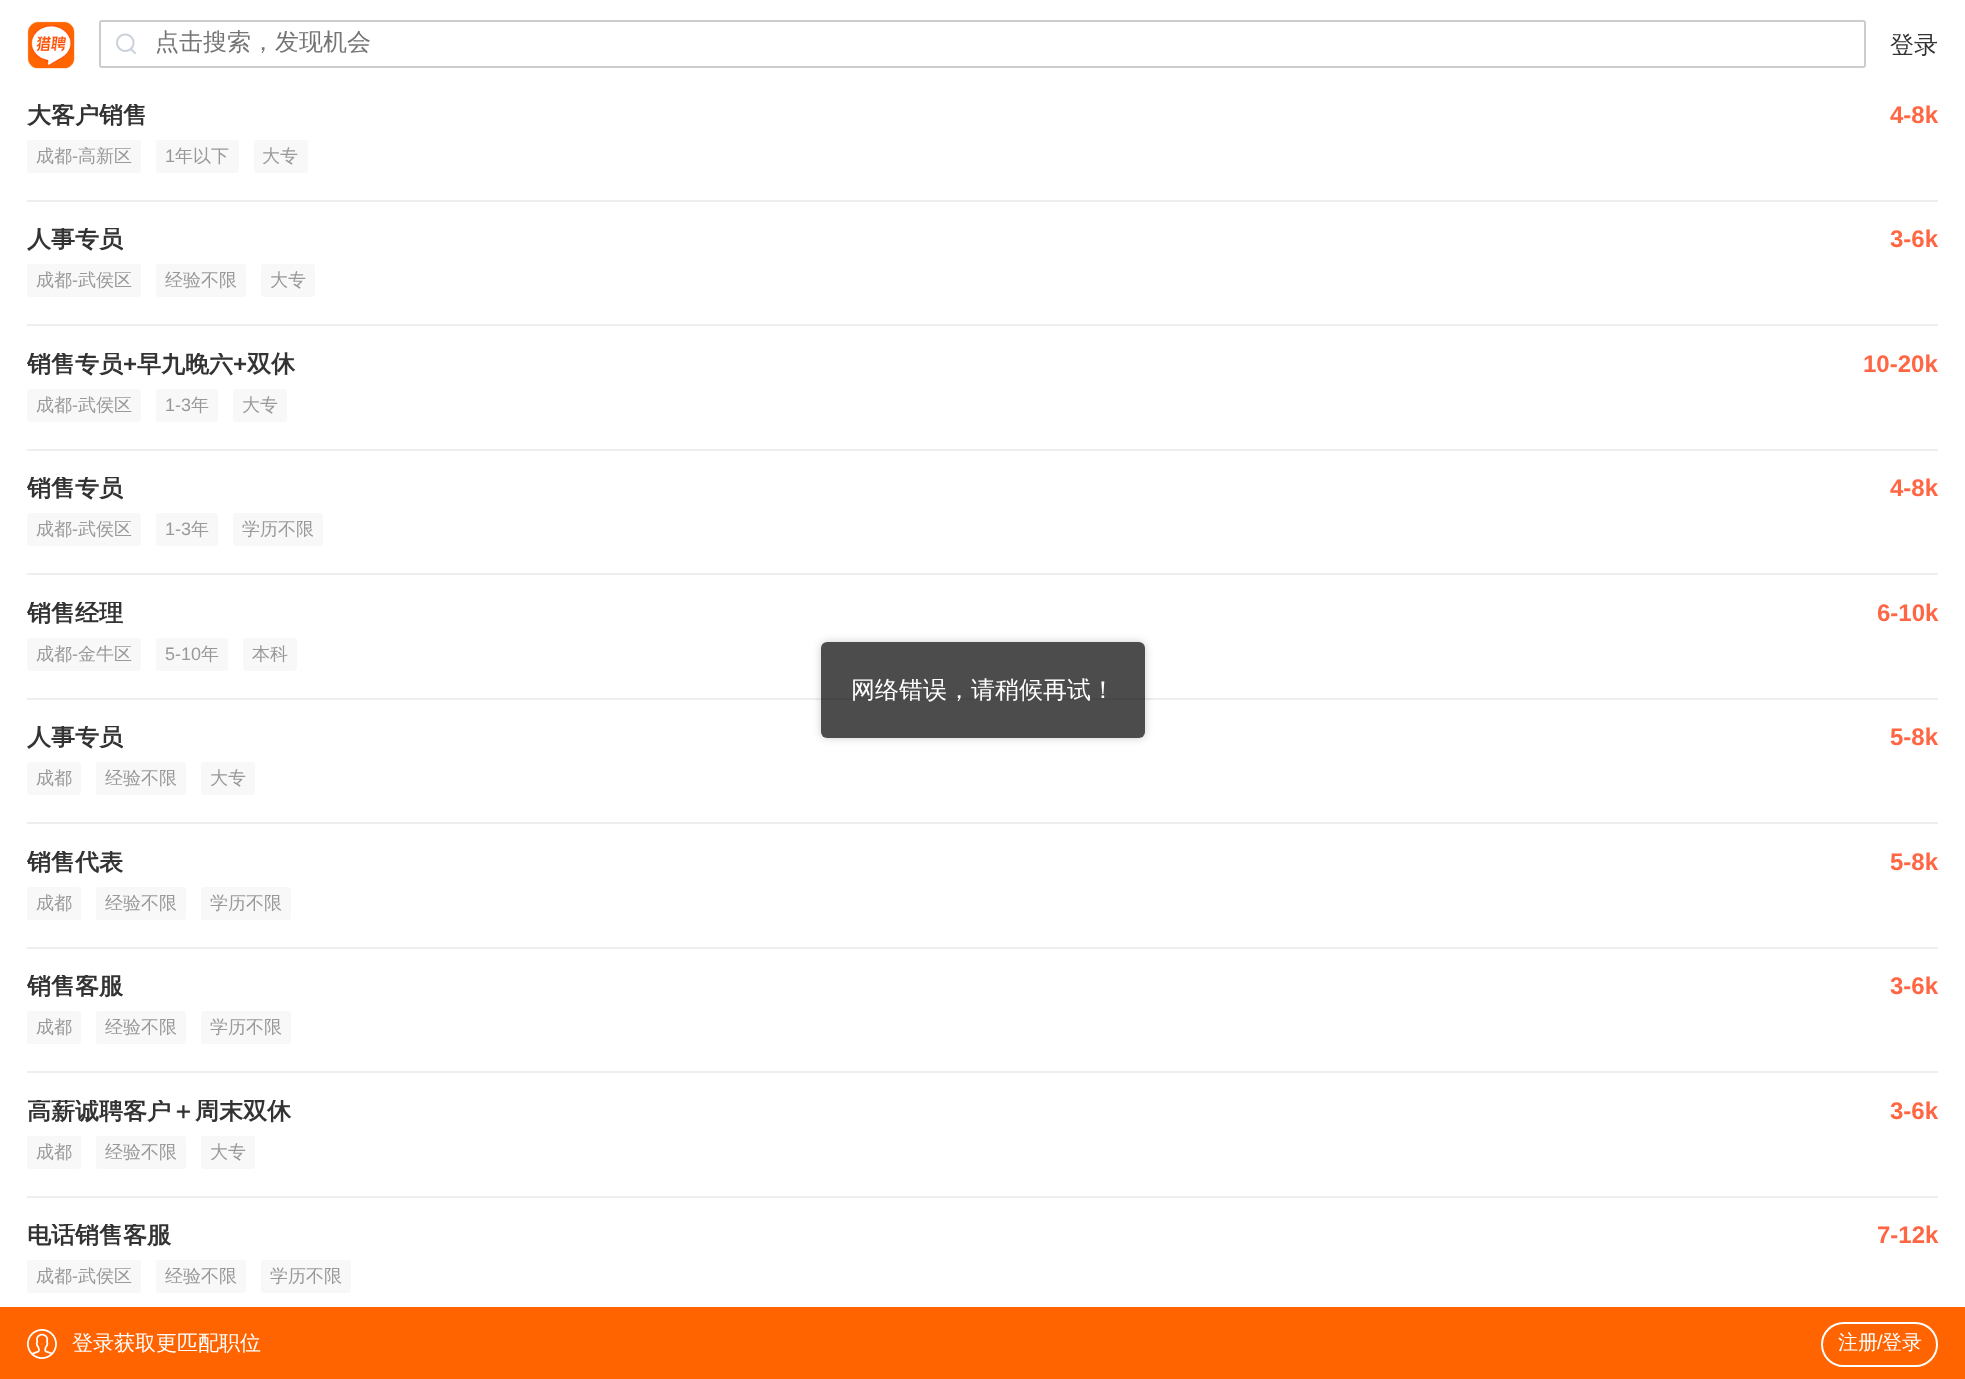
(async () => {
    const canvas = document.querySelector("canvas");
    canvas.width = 1965;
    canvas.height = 1379;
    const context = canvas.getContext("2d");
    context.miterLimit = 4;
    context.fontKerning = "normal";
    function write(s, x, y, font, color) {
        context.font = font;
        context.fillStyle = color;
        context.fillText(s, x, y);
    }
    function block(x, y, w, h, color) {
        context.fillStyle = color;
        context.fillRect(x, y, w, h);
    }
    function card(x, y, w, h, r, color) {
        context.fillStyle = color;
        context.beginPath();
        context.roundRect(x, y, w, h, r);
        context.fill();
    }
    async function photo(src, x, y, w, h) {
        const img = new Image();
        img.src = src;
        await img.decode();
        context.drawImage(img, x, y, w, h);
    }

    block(0, 0, 1965, 1379, "rgb(255, 255, 255)");
    await photo("media/1.png", 27, 21, 48, 48);
    context.beginPath();
    context.roundRect(100, 21, 1765, 46, 2);
    context.strokeStyle = "rgb(204, 204, 204)";
    context.lineWidth = 2;
    context.stroke();
    await photo("media/2.png", 116, 33, 20, 21);
    write("点击搜索，发现机会", 155, 50, "500 24px WenQuanYi Zen Hei", "rgb(117, 117, 117)");
    write("登录", 1890, 53, "500 24px WenQuanYi Zen Hei", "rgb(51, 51, 51)");
    block(27, 200, 1911, 2, "rgb(238, 238, 238)");
    context.save();
    context.beginPath();
    context.rect(27, 104, 120, 24);
    context.clip();
    write("大客户销售", 27, 123, "bold 24px WenQuanYi Zen Hei", "rgb(51, 51, 51)");
    context.restore();
    write("4-8k", 1890, 123, "bold 24px Liberation Sans", "rgb(255, 102, 68)");
    card(27, 140, 114, 33, 3, "rgb(248, 248, 248)");
    write("成都", 36, 162, "500 18px WenQuanYi Zen Hei", "rgb(153, 153, 153)");
    write("-", 72, 162, "18px Liberation Sans", "rgb(153, 153, 153)");
    write("高新区", 78, 162, "500 18px WenQuanYi Zen Hei", "rgb(153, 153, 153)");
    card(156, 140, 83, 33, 3, "rgb(248, 248, 248)");
    write("1", 165, 162, "18px Liberation Sans", "rgb(153, 153, 153)");
    write("年以下", 175, 162, "500 18px WenQuanYi Zen Hei", "rgb(153, 153, 153)");
    card(254, 140, 54, 33, 3, "rgb(248, 248, 248)");
    write("大专", 262, 162, "500 18px WenQuanYi Zen Hei", "rgb(153, 153, 153)");
    block(27, 324, 1911, 2, "rgb(238, 238, 238)");
    context.save();
    context.beginPath();
    context.rect(27, 228, 96, 24);
    context.clip();
    write("人事专员", 27, 247, "bold 24px WenQuanYi Zen Hei", "rgb(51, 51, 51)");
    context.restore();
    write("3-6k", 1890, 247, "bold 24px Liberation Sans", "rgb(255, 102, 68)");
    card(27, 264, 114, 33, 3, "rgb(248, 248, 248)");
    write("成都", 36, 286, "500 18px WenQuanYi Zen Hei", "rgb(153, 153, 153)");
    write("-", 72, 286, "18px Liberation Sans", "rgb(153, 153, 153)");
    write("武侯区", 78, 286, "500 18px WenQuanYi Zen Hei", "rgb(153, 153, 153)");
    card(156, 264, 90, 33, 3, "rgb(248, 248, 248)");
    write("经验不限", 165, 286, "500 18px WenQuanYi Zen Hei", "rgb(153, 153, 153)");
    card(261, 264, 54, 33, 3, "rgb(248, 248, 248)");
    write("大专", 270, 286, "500 18px WenQuanYi Zen Hei", "rgb(153, 153, 153)");
    block(27, 449, 1911, 2, "rgb(238, 238, 238)");
    context.save();
    context.beginPath();
    context.rect(27, 353, 269, 24);
    context.clip();
    write("销售专员", 27, 372, "bold 24px WenQuanYi Zen Hei", "rgb(51, 51, 51)");
    context.restore();
    write("+", 123, 372, "bold 24px Liberation Sans", "rgb(51, 51, 51)");
    context.save();
    context.beginPath();
    context.rect(27, 353, 269, 24);
    context.clip();
    write("早九晚六", 137, 372, "bold 24px WenQuanYi Zen Hei", "rgb(51, 51, 51)");
    context.restore();
    write("+", 233, 372, "bold 24px Liberation Sans", "rgb(51, 51, 51)");
    write("双休", 247, 372, "bold 24px WenQuanYi Zen Hei", "rgb(51, 51, 51)");
    write("10-20k", 1863, 372, "bold 24px Liberation Sans", "rgb(255, 102, 68)");
    card(27, 389, 114, 33, 3, "rgb(248, 248, 248)");
    write("成都", 36, 411, "500 18px WenQuanYi Zen Hei", "rgb(153, 153, 153)");
    write("-", 72, 411, "18px Liberation Sans", "rgb(153, 153, 153)");
    write("武侯区", 78, 411, "500 18px WenQuanYi Zen Hei", "rgb(153, 153, 153)");
    card(156, 389, 62, 33, 3, "rgb(248, 248, 248)");
    write("1-3", 165, 411, "18px Liberation Sans", "rgb(153, 153, 153)");
    write("年", 191, 411, "500 18px WenQuanYi Zen Hei", "rgb(153, 153, 153)");
    card(233, 389, 54, 33, 3, "rgb(248, 248, 248)");
    write("大专", 242, 411, "500 18px WenQuanYi Zen Hei", "rgb(153, 153, 153)");
    block(27, 573, 1911, 2, "rgb(238, 238, 238)");
    context.save();
    context.beginPath();
    context.rect(27, 477, 96, 24);
    context.clip();
    write("销售专员", 27, 496, "bold 24px WenQuanYi Zen Hei", "rgb(51, 51, 51)");
    context.restore();
    write("4-8k", 1890, 496, "bold 24px Liberation Sans", "rgb(255, 102, 68)");
    card(27, 513, 114, 33, 3, "rgb(248, 248, 248)");
    write("成都", 36, 535, "500 18px WenQuanYi Zen Hei", "rgb(153, 153, 153)");
    write("-", 72, 535, "18px Liberation Sans", "rgb(153, 153, 153)");
    write("武侯区", 78, 535, "500 18px WenQuanYi Zen Hei", "rgb(153, 153, 153)");
    card(156, 513, 62, 33, 3, "rgb(248, 248, 248)");
    write("1-3", 165, 535, "18px Liberation Sans", "rgb(153, 153, 153)");
    write("年", 191, 535, "500 18px WenQuanYi Zen Hei", "rgb(153, 153, 153)");
    card(233, 513, 90, 33, 3, "rgb(248, 248, 248)");
    write("学历不限", 242, 535, "500 18px WenQuanYi Zen Hei", "rgb(153, 153, 153)");
    block(27, 698, 1911, 2, "rgb(238, 238, 238)");
    context.save();
    context.beginPath();
    context.rect(27, 602, 96, 24);
    context.clip();
    write("销售经理", 27, 621, "bold 24px WenQuanYi Zen Hei", "rgb(51, 51, 51)");
    context.restore();
    write("6-10k", 1877, 621, "bold 24px Liberation Sans", "rgb(255, 102, 68)");
    card(27, 638, 114, 33, 3, "rgb(248, 248, 248)");
    write("成都", 36, 660, "500 18px WenQuanYi Zen Hei", "rgb(153, 153, 153)");
    write("-", 72, 660, "18px Liberation Sans", "rgb(153, 153, 153)");
    write("金牛区", 78, 660, "500 18px WenQuanYi Zen Hei", "rgb(153, 153, 153)");
    card(156, 638, 72, 33, 3, "rgb(248, 248, 248)");
    write("5-10", 165, 660, "18px Liberation Sans", "rgb(153, 153, 153)");
    write("年", 201, 660, "500 18px WenQuanYi Zen Hei", "rgb(153, 153, 153)");
    card(243, 638, 54, 33, 3, "rgb(248, 248, 248)");
    write("本科", 252, 660, "500 18px WenQuanYi Zen Hei", "rgb(153, 153, 153)");
    block(27, 822, 1911, 2, "rgb(238, 238, 238)");
    context.save();
    context.beginPath();
    context.rect(27, 726, 96, 24);
    context.clip();
    write("人事专员", 27, 745, "bold 24px WenQuanYi Zen Hei", "rgb(51, 51, 51)");
    context.restore();
    write("5-8k", 1890, 745, "bold 24px Liberation Sans", "rgb(255, 102, 68)");
    card(27, 762, 54, 33, 3, "rgb(248, 248, 248)");
    write("成都", 36, 784, "500 18px WenQuanYi Zen Hei", "rgb(153, 153, 153)");
    card(96, 762, 90, 33, 3, "rgb(248, 248, 248)");
    write("经验不限", 105, 784, "500 18px WenQuanYi Zen Hei", "rgb(153, 153, 153)");
    card(201, 762, 54, 33, 3, "rgb(248, 248, 248)");
    write("大专", 210, 784, "500 18px WenQuanYi Zen Hei", "rgb(153, 153, 153)");
    block(27, 947, 1911, 2, "rgb(238, 238, 238)");
    context.save();
    context.beginPath();
    context.rect(27, 851, 96, 24);
    context.clip();
    write("销售代表", 27, 870, "bold 24px WenQuanYi Zen Hei", "rgb(51, 51, 51)");
    context.restore();
    write("5-8k", 1890, 870, "bold 24px Liberation Sans", "rgb(255, 102, 68)");
    card(27, 887, 54, 33, 3, "rgb(248, 248, 248)");
    write("成都", 36, 909, "500 18px WenQuanYi Zen Hei", "rgb(153, 153, 153)");
    card(96, 887, 90, 33, 3, "rgb(248, 248, 248)");
    write("经验不限", 105, 909, "500 18px WenQuanYi Zen Hei", "rgb(153, 153, 153)");
    card(201, 887, 90, 33, 3, "rgb(248, 248, 248)");
    write("学历不限", 210, 909, "500 18px WenQuanYi Zen Hei", "rgb(153, 153, 153)");
    block(27, 1071, 1911, 2, "rgb(238, 238, 238)");
    context.save();
    context.beginPath();
    context.rect(27, 975, 96, 24);
    context.clip();
    write("销售客服", 27, 994, "bold 24px WenQuanYi Zen Hei", "rgb(51, 51, 51)");
    context.restore();
    write("3-6k", 1890, 994, "bold 24px Liberation Sans", "rgb(255, 102, 68)");
    card(27, 1011, 54, 33, 3, "rgb(248, 248, 248)");
    write("成都", 36, 1033, "500 18px WenQuanYi Zen Hei", "rgb(153, 153, 153)");
    card(96, 1011, 90, 33, 3, "rgb(248, 248, 248)");
    write("经验不限", 105, 1033, "500 18px WenQuanYi Zen Hei", "rgb(153, 153, 153)");
    card(201, 1011, 90, 33, 3, "rgb(248, 248, 248)");
    write("学历不限", 210, 1033, "500 18px WenQuanYi Zen Hei", "rgb(153, 153, 153)");
    block(27, 1196, 1911, 2, "rgb(238, 238, 238)");
    context.save();
    context.beginPath();
    context.rect(27, 1100, 264, 24);
    context.clip();
    write("高薪诚聘客户＋周末双休", 27, 1119, "bold 24px WenQuanYi Zen Hei", "rgb(51, 51, 51)");
    context.restore();
    write("3-6k", 1890, 1119, "bold 24px Liberation Sans", "rgb(255, 102, 68)");
    card(27, 1136, 54, 33, 3, "rgb(248, 248, 248)");
    write("成都", 36, 1158, "500 18px WenQuanYi Zen Hei", "rgb(153, 153, 153)");
    card(96, 1136, 90, 33, 3, "rgb(248, 248, 248)");
    write("经验不限", 105, 1158, "500 18px WenQuanYi Zen Hei", "rgb(153, 153, 153)");
    card(201, 1136, 54, 33, 3, "rgb(248, 248, 248)");
    write("大专", 210, 1158, "500 18px WenQuanYi Zen Hei", "rgb(153, 153, 153)");
    context.save();
    context.beginPath();
    context.rect(27, 1224, 144, 24);
    context.clip();
    write("电话销售客服", 27, 1243, "bold 24px WenQuanYi Zen Hei", "rgb(51, 51, 51)");
    context.restore();
    write("7-12k", 1877, 1243, "bold 24px Liberation Sans", "rgb(255, 102, 68)");
    card(27, 1260, 114, 33, 3, "rgb(248, 248, 248)");
    write("成都", 36, 1282, "500 18px WenQuanYi Zen Hei", "rgb(153, 153, 153)");
    write("-", 72, 1282, "18px Liberation Sans", "rgb(153, 153, 153)");
    write("武侯区", 78, 1282, "500 18px WenQuanYi Zen Hei", "rgb(153, 153, 153)");
    card(156, 1260, 90, 33, 3, "rgb(248, 248, 248)");
    write("经验不限", 165, 1282, "500 18px WenQuanYi Zen Hei", "rgb(153, 153, 153)");
    card(261, 1260, 90, 33, 3, "rgb(248, 248, 248)");
    write("学历不限", 270, 1282, "500 18px WenQuanYi Zen Hei", "rgb(153, 153, 153)");
    context.save();
    context.beginPath();
    context.moveTo(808, 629);
    context.lineTo(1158, 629);
    context.lineTo(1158, 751);
    context.lineTo(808, 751);
    context.closePath();
    context.moveTo(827, 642);
    context.lineTo(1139, 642);
    context.bezierCurveTo(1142.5, 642, 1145, 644.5, 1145, 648);
    context.lineTo(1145, 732);
    context.bezierCurveTo(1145, 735.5, 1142.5, 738, 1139, 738);
    context.lineTo(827, 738);
    context.bezierCurveTo(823.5, 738, 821, 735.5, 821, 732);
    context.lineTo(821, 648);
    context.bezierCurveTo(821, 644.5, 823.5, 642, 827, 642);
    context.closePath();
    context.clip("evenodd");
    context.fillStyle = "rgba(0, 0, 0, 0.2)";
    context.filter = "blur(4px)";
    context.beginPath();
    context.roundRect(821, 642, 324, 96, 6);
    context.fill();
    context.filter = "none";
    context.restore();
    card(821, 642, 324, 96, 6, "rgba(0, 0, 0, 0.7)");
    write("网络错误，请稍候再试！", 851, 698, "500 24px WenQuanYi Zen Hei", "rgb(255, 255, 255)");
    block(0, 1307, 1965, 72, "rgb(255, 100, 0)");
    await photo("media/3.png", 27, 1329, 30, 30);
    write("登录获取更匹配职位", 72, 1350, "500 21px WenQuanYi Zen Hei", "rgb(255, 255, 255)");
    context.beginPath();
    context.roundRect(1822, 1323, 115, 43, 21.5);
    context.strokeStyle = "rgb(255, 255, 255)";
    context.stroke();
    write("注册", 1838, 1349, "500 20px WenQuanYi Zen Hei", "rgb(255, 255, 255)");
    write("/", 1877, 1349, "20px Liberation Sans", "rgb(255, 255, 255)");
    write("登录", 1882, 1349, "500 20px WenQuanYi Zen Hei", "rgb(255, 255, 255)");
})();
